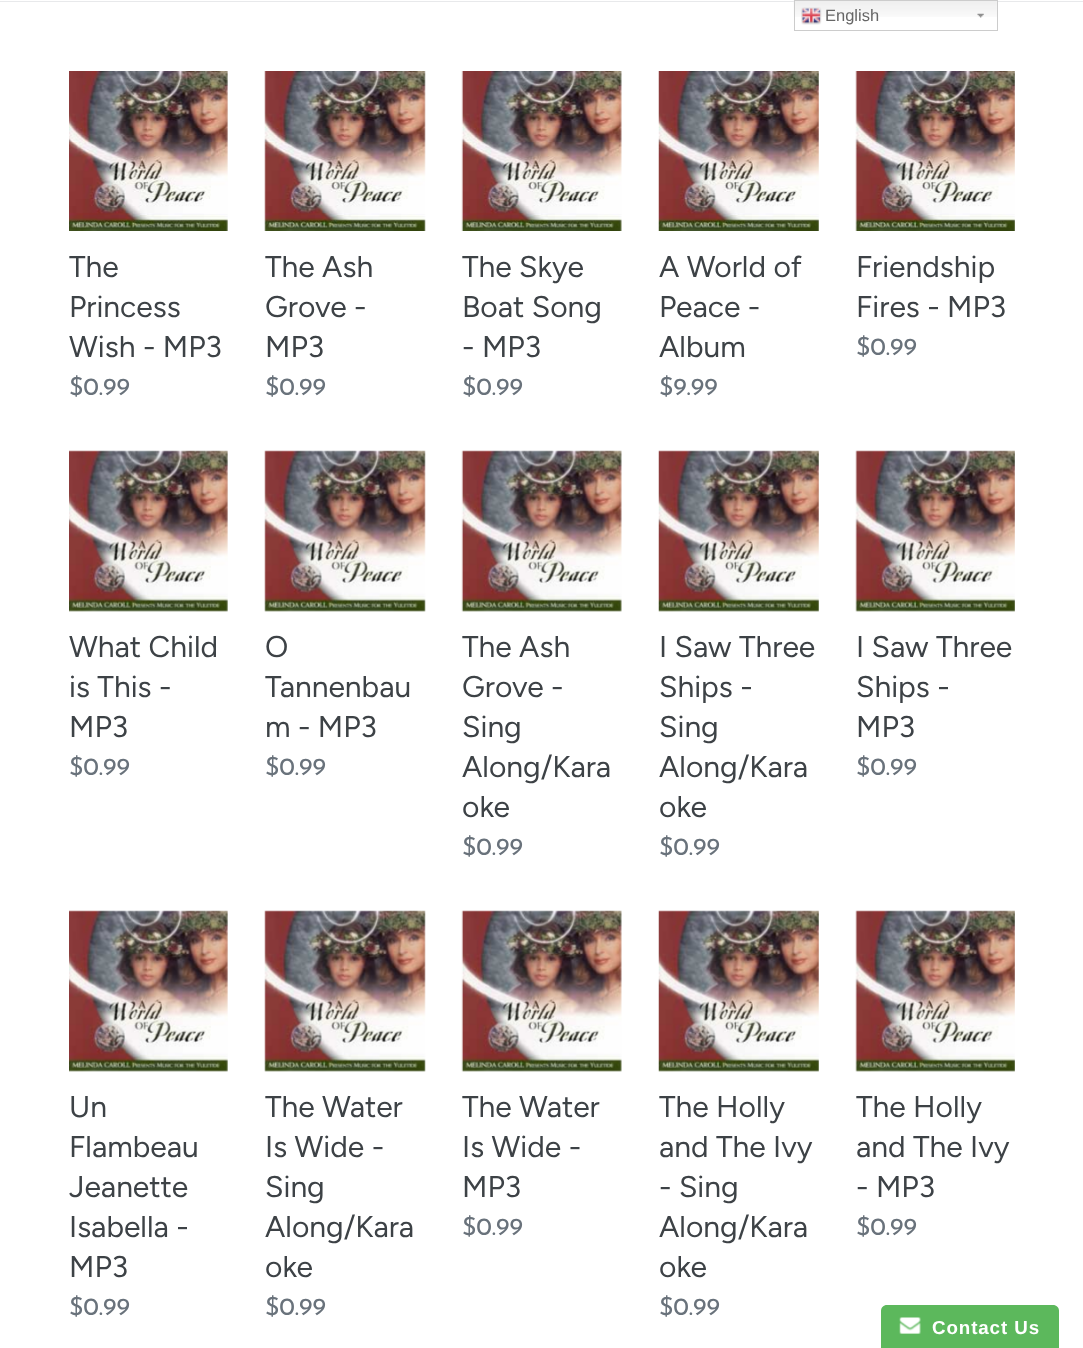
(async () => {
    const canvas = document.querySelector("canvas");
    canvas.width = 1083;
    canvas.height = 1348;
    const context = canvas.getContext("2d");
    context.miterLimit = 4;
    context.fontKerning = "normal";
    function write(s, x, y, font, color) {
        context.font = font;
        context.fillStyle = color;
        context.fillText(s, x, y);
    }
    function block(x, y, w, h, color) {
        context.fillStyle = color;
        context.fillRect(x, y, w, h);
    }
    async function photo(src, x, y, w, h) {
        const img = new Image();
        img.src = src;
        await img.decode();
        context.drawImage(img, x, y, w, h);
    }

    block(0, 0, 1083, 1348, "rgb(255, 255, 255)");
    block(0, 1, 1083, 1, "rgb(232, 233, 235)");
    block(795, 1, 202, 1, "rgb(255, 255, 255)");
    await photo("media/1.png", 793, 0, 204, 17);
    await photo("media/2.png", 977, 13, 7, 5);
    context.strokeStyle = "rgb(204, 204, 204)";
    context.strokeRect(794.5, 0.5, 203, 30);
    await photo("media/3.png", 801, 7, 21, 18);
    write("English", 825, 21, "16.5px Liberation Sans", "rgb(102, 102, 102)");
    await photo("media/4.png", 69, 71, 159, 160);
    write("The", 69, 277, "30px Figtree", "rgb(61, 66, 70)");
    write("Princess", 69, 317, "30px Figtree", "rgb(61, 66, 70)");
    write("Wish - MP3", 69, 357, "30px Figtree", "rgb(61, 66, 70)");
    write("$0.99", 69, 395, "25px Josefin Sans", "rgb(105, 114, 123)");
    await photo("media/5.png", 264, 71, 162, 160);
    write("The Ash", 265, 277, "30px Figtree", "rgb(61, 66, 70)");
    write("Grove -", 265, 317, "30px Figtree", "rgb(61, 66, 70)");
    write("MP3", 265, 357, "30px Figtree", "rgb(61, 66, 70)");
    write("$0.99", 265, 395, "25px Josefin Sans", "rgb(105, 114, 123)");
    await photo("media/6.png", 461, 71, 161, 160);
    write("The Skye", 462, 277, "30px Figtree", "rgb(61, 66, 70)");
    write("Boat Song", 462, 317, "30px Figtree", "rgb(61, 66, 70)");
    write("- MP3", 462, 357, "30px Figtree", "rgb(61, 66, 70)");
    write("$0.99", 462, 395, "25px Josefin Sans", "rgb(105, 114, 123)");
    await photo("media/7.png", 658, 71, 161, 160);
    write("A World of", 659, 277, "30px Figtree", "rgb(61, 66, 70)");
    write("Peace -", 659, 317, "30px Figtree", "rgb(61, 66, 70)");
    write("Album", 659, 357, "30px Figtree", "rgb(61, 66, 70)");
    write("$9.99", 659, 395, "25px Josefin Sans", "rgb(105, 114, 123)");
    await photo("media/8.png", 855, 71, 160, 160);
    write("Friendship", 856, 277, "30px Figtree", "rgb(61, 66, 70)");
    write("Fires - MP3", 856, 317, "30px Figtree", "rgb(61, 66, 70)");
    write("$0.99", 856, 355, "25px Josefin Sans", "rgb(105, 114, 123)");
    await photo("media/9.png", 69, 450, 159, 162);
    write("What Child", 69, 657, "30px Figtree", "rgb(61, 66, 70)");
    write("is This -", 69, 697, "30px Figtree", "rgb(61, 66, 70)");
    write("MP3", 69, 737, "30px Figtree", "rgb(61, 66, 70)");
    write("$0.99", 69, 775, "25px Josefin Sans", "rgb(105, 114, 123)");
    await photo("media/10.png", 264, 450, 162, 162);
    write("O", 265, 657, "30px Figtree", "rgb(61, 66, 70)");
    write("Tannenbau", 265, 697, "30px Figtree", "rgb(61, 66, 70)");
    write("m - MP3", 265, 737, "30px Figtree", "rgb(61, 66, 70)");
    write("$0.99", 265, 775, "25px Josefin Sans", "rgb(105, 114, 123)");
    await photo("media/11.png", 461, 450, 161, 162);
    write("The Ash", 462, 657, "30px Figtree", "rgb(61, 66, 70)");
    write("Grove -", 462, 697, "30px Figtree", "rgb(61, 66, 70)");
    write("Sing", 462, 737, "30px Figtree", "rgb(61, 66, 70)");
    write("Along/Kara", 462, 777, "30px Figtree", "rgb(61, 66, 70)");
    write("oke", 462, 817, "30px Figtree", "rgb(61, 66, 70)");
    write("$0.99", 462, 855, "25px Josefin Sans", "rgb(105, 114, 123)");
    await photo("media/12.png", 658, 450, 161, 162);
    write("I Saw Three", 659, 657, "30px Figtree", "rgb(61, 66, 70)");
    write("Ships -", 659, 697, "30px Figtree", "rgb(61, 66, 70)");
    write("Sing", 659, 737, "30px Figtree", "rgb(61, 66, 70)");
    write("Along/Kara", 659, 777, "30px Figtree", "rgb(61, 66, 70)");
    write("oke", 659, 817, "30px Figtree", "rgb(61, 66, 70)");
    write("$0.99", 659, 855, "25px Josefin Sans", "rgb(105, 114, 123)");
    await photo("media/13.png", 855, 450, 160, 162);
    write("I Saw Three", 856, 657, "30px Figtree", "rgb(61, 66, 70)");
    write("Ships -", 856, 697, "30px Figtree", "rgb(61, 66, 70)");
    write("MP3", 856, 737, "30px Figtree", "rgb(61, 66, 70)");
    write("$0.99", 856, 775, "25px Josefin Sans", "rgb(105, 114, 123)");
    await photo("media/9.png", 69, 910, 159, 162);
    write("Un", 69, 1117, "30px Figtree", "rgb(61, 66, 70)");
    write("Flambeau", 69, 1157, "30px Figtree", "rgb(61, 66, 70)");
    write("Jeanette", 69, 1197, "30px Figtree", "rgb(61, 66, 70)");
    write("Isabella -", 69, 1237, "30px Figtree", "rgb(61, 66, 70)");
    write("MP3", 69, 1277, "30px Figtree", "rgb(61, 66, 70)");
    write("$0.99", 69, 1315, "25px Josefin Sans", "rgb(105, 114, 123)");
    await photo("media/10.png", 264, 910, 162, 162);
    write("The Water", 265, 1117, "30px Figtree", "rgb(61, 66, 70)");
    write("Is Wide -", 265, 1157, "30px Figtree", "rgb(61, 66, 70)");
    write("Sing", 265, 1197, "30px Figtree", "rgb(61, 66, 70)");
    write("Along/Kara", 265, 1237, "30px Figtree", "rgb(61, 66, 70)");
    write("oke", 265, 1277, "30px Figtree", "rgb(61, 66, 70)");
    write("$0.99", 265, 1315, "25px Josefin Sans", "rgb(105, 114, 123)");
    await photo("media/11.png", 461, 910, 161, 162);
    write("The Water", 462, 1117, "30px Figtree", "rgb(61, 66, 70)");
    write("Is Wide -", 462, 1157, "30px Figtree", "rgb(61, 66, 70)");
    write("MP3", 462, 1197, "30px Figtree", "rgb(61, 66, 70)");
    write("$0.99", 462, 1235, "25px Josefin Sans", "rgb(105, 114, 123)");
    await photo("media/12.png", 658, 910, 161, 162);
    write("The Holly", 659, 1117, "30px Figtree", "rgb(61, 66, 70)");
    write("and The Ivy", 659, 1157, "30px Figtree", "rgb(61, 66, 70)");
    write("- Sing", 659, 1197, "30px Figtree", "rgb(61, 66, 70)");
    write("Along/Kara", 659, 1237, "30px Figtree", "rgb(61, 66, 70)");
    write("oke", 659, 1277, "30px Figtree", "rgb(61, 66, 70)");
    write("$0.99", 659, 1315, "25px Josefin Sans", "rgb(105, 114, 123)");
    await photo("media/13.png", 855, 910, 160, 162);
    write("The Holly", 856, 1117, "30px Figtree", "rgb(61, 66, 70)");
    write("and The Ivy", 856, 1157, "30px Figtree", "rgb(61, 66, 70)");
    write("- MP3", 856, 1197, "30px Figtree", "rgb(61, 66, 70)");
    write("$0.99", 856, 1235, "25px Josefin Sans", "rgb(105, 114, 123)");
    context.fillStyle = "rgb(92, 184, 92)";
    context.beginPath();
    context.moveTo(887, 1305);
    context.lineTo(1053, 1305);
    context.bezierCurveTo(1056.5, 1305, 1059, 1307.5, 1059, 1311);
    context.lineTo(1059, 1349);
    context.lineTo(881, 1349);
    context.lineTo(881, 1311);
    context.bezierCurveTo(881, 1307.5, 883.5, 1305, 887, 1305);
    context.closePath();
    context.fill();
    await photo("media/14.png", 899, 1317, 22, 17);
    context.letterSpacing = "0.9px";
    write("Contact Us", 932, 1334, "bold 18.75px Liberation Sans", "rgb(255, 255, 255)");
})();
